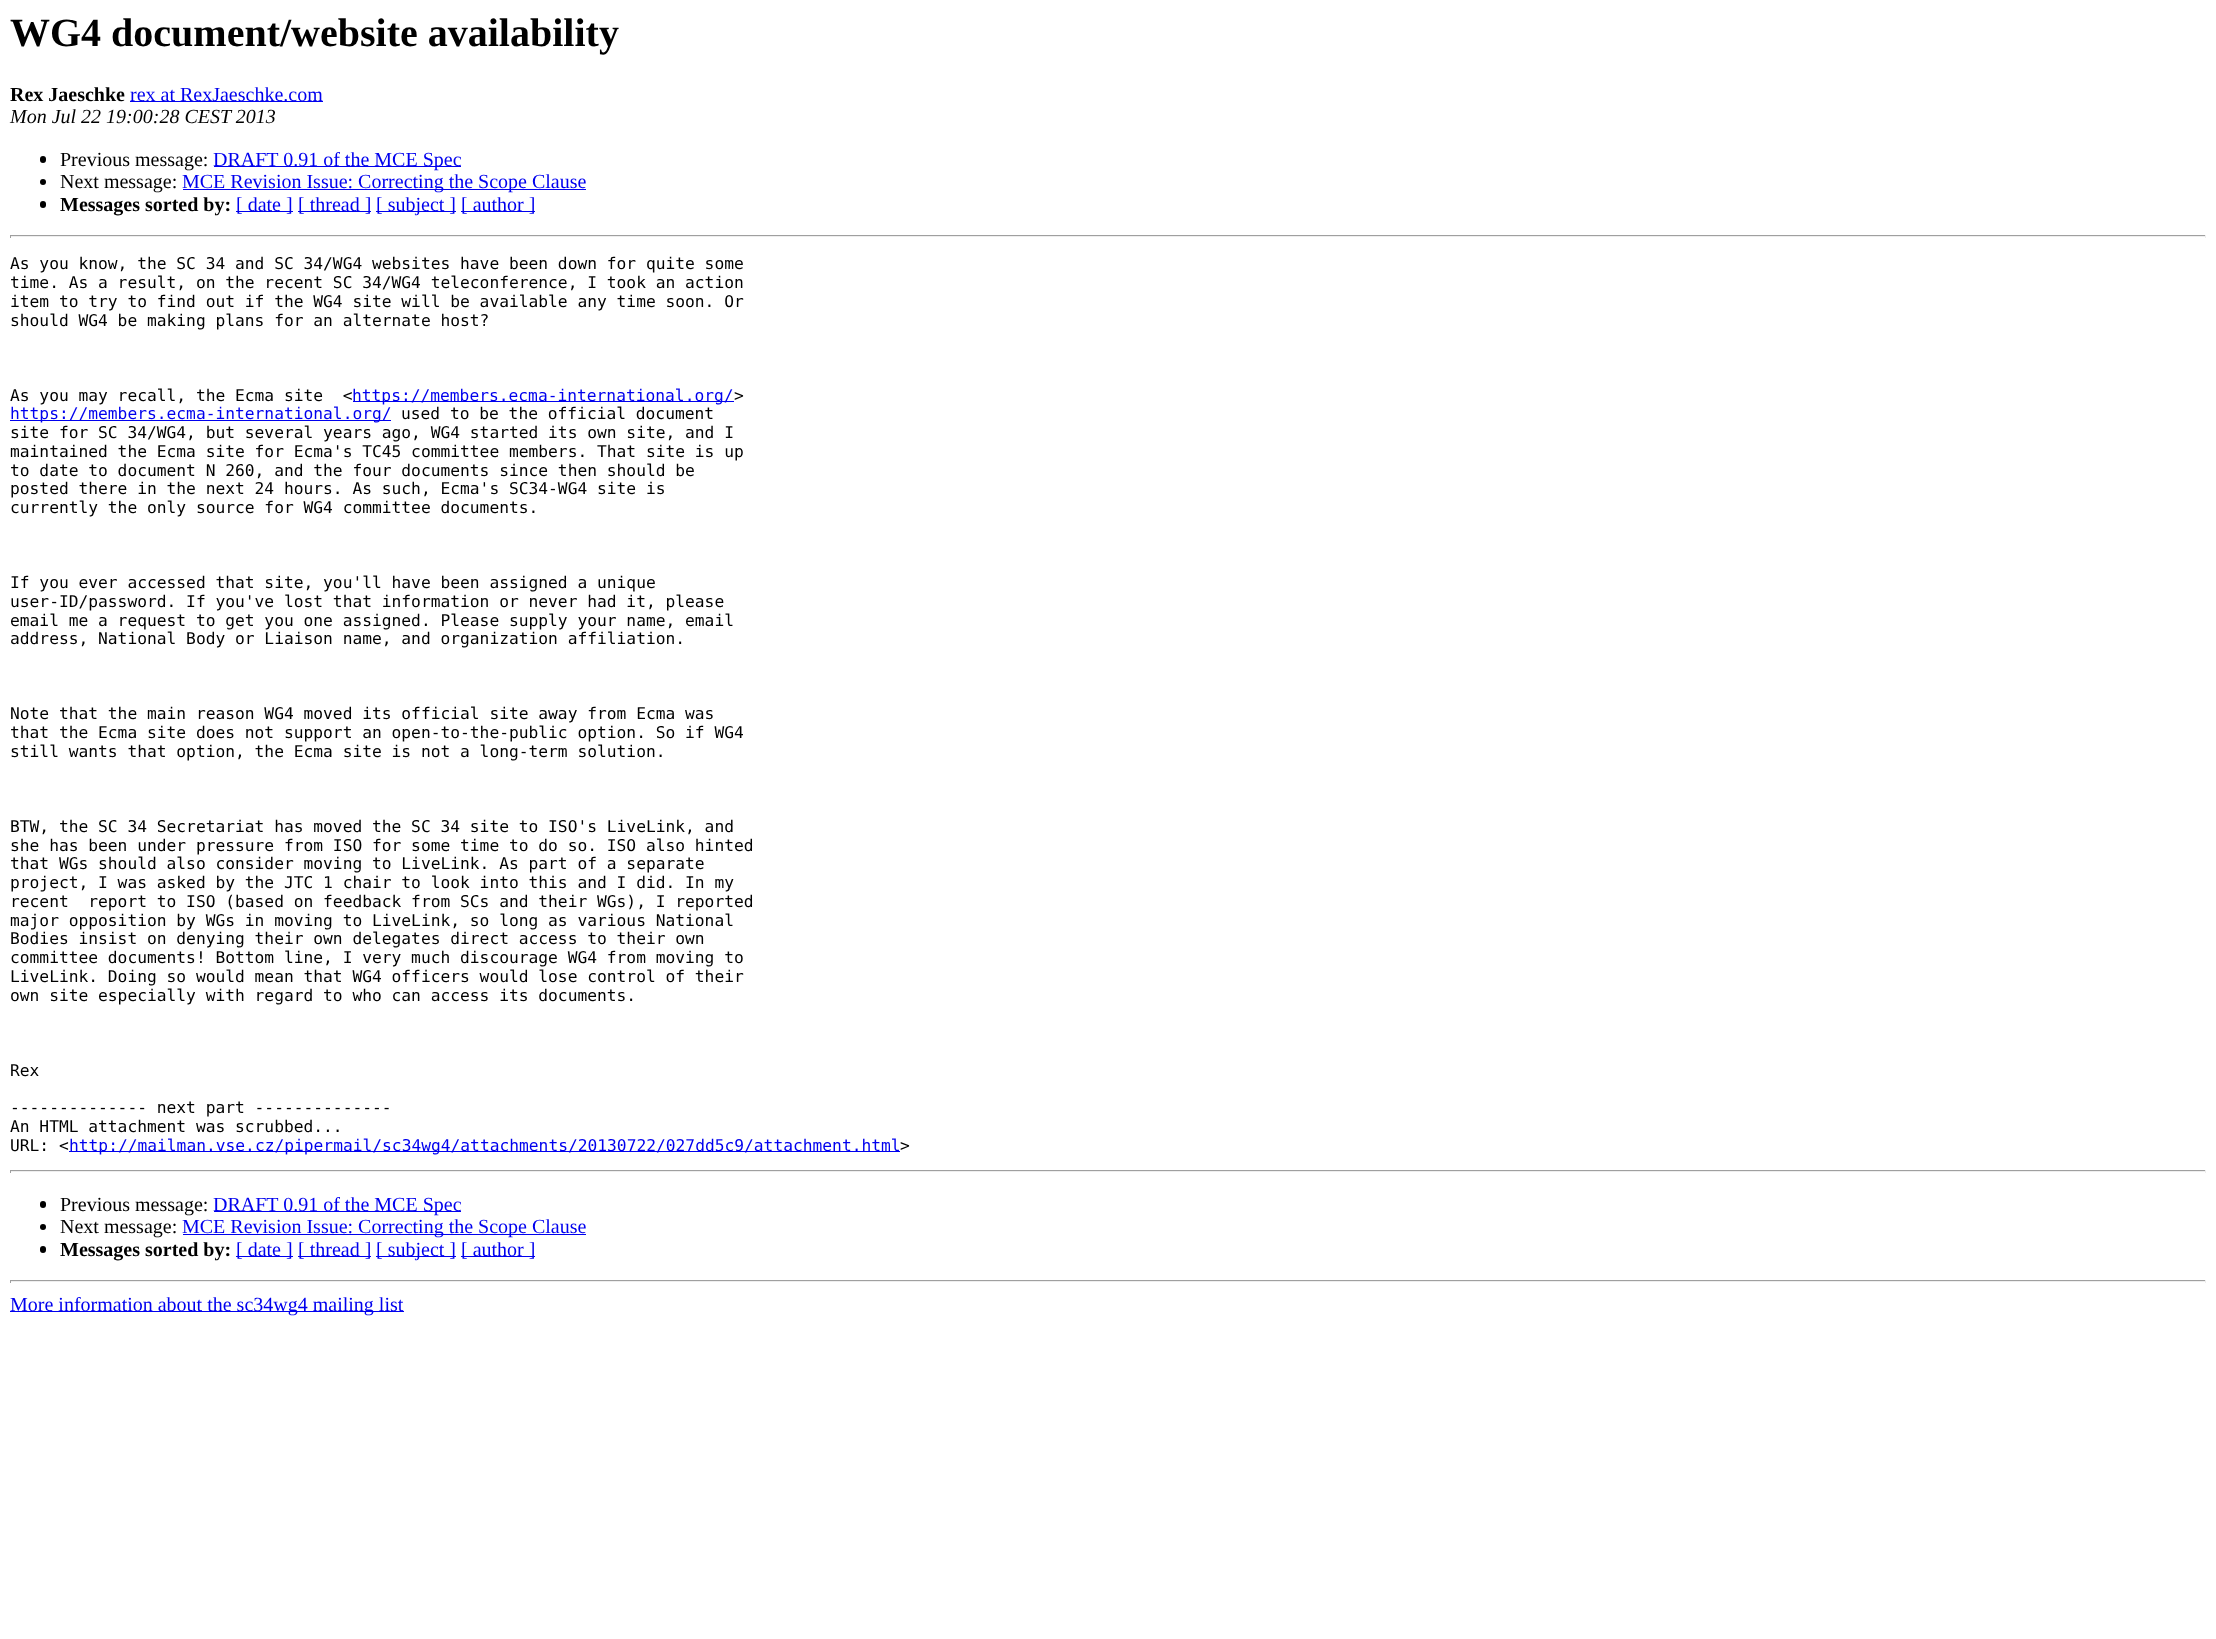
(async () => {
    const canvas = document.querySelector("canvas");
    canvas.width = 2216;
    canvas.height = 1639;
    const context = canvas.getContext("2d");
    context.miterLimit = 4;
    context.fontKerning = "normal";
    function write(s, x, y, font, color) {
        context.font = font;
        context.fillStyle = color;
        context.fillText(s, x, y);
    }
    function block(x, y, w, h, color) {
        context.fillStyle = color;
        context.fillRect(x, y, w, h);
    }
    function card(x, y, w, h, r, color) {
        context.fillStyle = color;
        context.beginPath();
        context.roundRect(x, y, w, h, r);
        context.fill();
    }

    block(0, 0, 2216, 1639, "rgb(255, 255, 255)");
    write("WG4 document/website availability", 10, 46, "bold 40px Liberation Serif", "rgb(0, 0, 0)");
    write("Rex Jaeschke", 10, 101, "bold 20px Liberation Serif", "rgb(0, 0, 0)");
    block(130, 101, 193, 1, "rgb(0, 0, 238)");
    write("rex at RexJaeschke.com", 130, 101, "20px Liberation Serif", "rgb(0, 0, 238)");
    write("Mon Jul 22 19:00:28 CEST 2013", 10, 123, "italic 20px Liberation Serif", "rgb(0, 0, 0)");
    card(40, 156, 6, 7, 3, "rgb(0, 0, 0)");
    write("Previous message:", 60, 166, "20px Liberation Serif", "rgb(0, 0, 0)");
    block(214, 166, 247, 1, "rgb(0, 0, 238)");
    write("DRAFT 0.91 of the MCE Spec", 213, 166, "20px Liberation Serif", "rgb(0, 0, 238)");
    context.fillStyle = "rgb(0, 0, 0)";
    context.beginPath();
    context.arc(43, 182, 3, 0, Math.PI * 2);
    context.fill();
    write("Next message:", 60, 188, "20px Liberation Serif", "rgb(0, 0, 0)");
    block(183, 189, 403, 1, "rgb(0, 0, 238)");
    write("MCE Revision Issue: Correcting the Scope Clause", 182, 188, "20px Liberation Serif", "rgb(0, 0, 238)");
    card(40, 201, 6, 7, 3, "rgb(0, 0, 0)");
    write("Messages sorted by:", 60, 211, "bold 20px Liberation Serif", "rgb(0, 0, 0)");
    block(236, 211, 57, 1, "rgb(0, 0, 238)");
    write("[ date ]", 236, 211, "20px Liberation Serif", "rgb(0, 0, 238)");
    block(298, 211, 73, 1, "rgb(0, 0, 238)");
    write("[ thread ]", 298, 211, "20px Liberation Serif", "rgb(0, 0, 238)");
    block(376, 211, 80, 1, "rgb(0, 0, 238)");
    write("[ subject ]", 376, 211, "20px Liberation Serif", "rgb(0, 0, 238)");
    block(461, 211, 74, 1, "rgb(0, 0, 238)");
    write("[ author ]", 461, 211, "20px Liberation Serif", "rgb(0, 0, 238)");
    block(10, 235, 2196, 1, "rgb(159, 159, 159)");
    block(2205, 235, 1, 3, "rgb(238, 238, 238)");
    block(10, 236, 2196, 1, "rgb(238, 238, 238)");
    block(10, 235, 1, 3, "rgb(159, 159, 159)");
    write("As you know, the SC 34 and SC 34/WG4 websites have been down for quite some", 10, 269, "16.25px DejaVu Sans Mono", "rgb(0, 0, 0)");
    write("time. As a result, on the recent SC 34/WG4 teleconference, I took an action", 10, 288, "16.25px DejaVu Sans Mono", "rgb(0, 0, 0)");
    write("item to try to find out if the WG4 site will be available any time soon. Or", 10, 307, "16.25px DejaVu Sans Mono", "rgb(0, 0, 0)");
    write("should WG4 be making plans for an alternate host?", 10, 326, "16.25px DejaVu Sans Mono", "rgb(0, 0, 0)");
    write("As you may recall, the Ecma site  <", 10, 401, "16.25px DejaVu Sans Mono", "rgb(0, 0, 0)");
    block(353, 401, 381, 1, "rgb(0, 0, 238)");
    write("https://members.ecma-international.org/", 352, 401, "16.25px DejaVu Sans Mono", "rgb(0, 0, 238)");
    write(">", 734, 401, "16.25px DejaVu Sans Mono", "rgb(0, 0, 0)");
    block(10, 420, 381, 1, "rgb(0, 0, 238)");
    write("https://members.ecma-international.org/", 10, 419, "16.25px DejaVu Sans Mono", "rgb(0, 0, 238)");
    write("used to be the official document", 401, 419, "16.25px DejaVu Sans Mono", "rgb(0, 0, 0)");
    write("site for SC 34/WG4, but several years ago, WG4 started its own site, and I", 10, 438, "16.25px DejaVu Sans Mono", "rgb(0, 0, 0)");
    write("maintained the Ecma site for Ecma's TC45 committee members. That site is up", 10, 457, "16.25px DejaVu Sans Mono", "rgb(0, 0, 0)");
    write("to date to document N 260, and the four documents since then should be", 10, 476, "16.25px DejaVu Sans Mono", "rgb(0, 0, 0)");
    write("posted there in the next 24 hours. As such, Ecma's SC34-WG4 site is", 10, 494, "16.25px DejaVu Sans Mono", "rgb(0, 0, 0)");
    write("currently the only source for WG4 committee documents.", 10, 513, "16.25px DejaVu Sans Mono", "rgb(0, 0, 0)");
    write("If you ever accessed that site, you'll have been assigned a unique", 10, 588, "16.25px DejaVu Sans Mono", "rgb(0, 0, 0)");
    write("user-ID/password. If you've lost that information or never had it, please", 10, 607, "16.25px DejaVu Sans Mono", "rgb(0, 0, 0)");
    write("email me a request to get you one assigned. Please supply your name, email", 10, 626, "16.25px DejaVu Sans Mono", "rgb(0, 0, 0)");
    write("address, National Body or Liaison name, and organization affiliation.", 10, 644, "16.25px DejaVu Sans Mono", "rgb(0, 0, 0)");
    write("Note that the main reason WG4 moved its official site away from Ecma was", 10, 719, "16.25px DejaVu Sans Mono", "rgb(0, 0, 0)");
    write("that the Ecma site does not support an open-to-the-public option. So if WG4", 10, 738, "16.25px DejaVu Sans Mono", "rgb(0, 0, 0)");
    write("still wants that option, the Ecma site is not a long-term solution.", 10, 757, "16.25px DejaVu Sans Mono", "rgb(0, 0, 0)");
    write("BTW, the SC 34 Secretariat has moved the SC 34 site to ISO's LiveLink, and", 10, 832, "16.25px DejaVu Sans Mono", "rgb(0, 0, 0)");
    write("she has been under pressure from ISO for some time to do so. ISO also hinted", 10, 851, "16.25px DejaVu Sans Mono", "rgb(0, 0, 0)");
    write("that WGs should also consider moving to LiveLink. As part of a separate", 10, 869, "16.25px DejaVu Sans Mono", "rgb(0, 0, 0)");
    write("project, I was asked by the JTC 1 chair to look into this and I did. In my", 10, 888, "16.25px DejaVu Sans Mono", "rgb(0, 0, 0)");
    write("recent  report to ISO (based on feedback from SCs and their WGs), I reported", 10, 907, "16.25px DejaVu Sans Mono", "rgb(0, 0, 0)");
    write("major opposition by WGs in moving to LiveLink, so long as various National", 10, 926, "16.25px DejaVu Sans Mono", "rgb(0, 0, 0)");
    write("Bodies insist on denying their own delegates direct access to their own", 10, 944, "16.25px DejaVu Sans Mono", "rgb(0, 0, 0)");
    write("committee documents! Bottom line, I very much discourage WG4 from moving to", 10, 963, "16.25px DejaVu Sans Mono", "rgb(0, 0, 0)");
    write("LiveLink. Doing so would mean that WG4 officers would lose control of their", 10, 982, "16.25px DejaVu Sans Mono", "rgb(0, 0, 0)");
    write("own site especially with regard to who can access its documents.", 10, 1001, "16.25px DejaVu Sans Mono", "rgb(0, 0, 0)");
    write("Rex", 10, 1076, "16.25px DejaVu Sans Mono", "rgb(0, 0, 0)");
    write("-------------- next part --------------", 10, 1113, "16.25px DejaVu Sans Mono", "rgb(0, 0, 0)");
    write("An HTML attachment was scrubbed...", 10, 1132, "16.25px DejaVu Sans Mono", "rgb(0, 0, 0)");
    write("URL: <", 10, 1151, "16.25px DejaVu Sans Mono", "rgb(0, 0, 0)");
    block(69, 1151, 831, 1, "rgb(0, 0, 238)");
    write("http://mailman.vse.cz/pipermail/sc34wg4/attachments/20130722/027dd5c9/attachment.html", 69, 1151, "16.25px DejaVu Sans Mono", "rgb(0, 0, 238)");
    write(">", 900, 1151, "16.25px DejaVu Sans Mono", "rgb(0, 0, 0)");
    block(10, 1170, 2196, 1, "rgb(159, 159, 159)");
    block(2205, 1170, 1, 3, "rgb(238, 238, 238)");
    block(10, 1171, 2196, 1, "rgb(238, 238, 238)");
    block(10, 1170, 1, 3, "rgb(159, 159, 159)");
    card(40, 1201, 6, 7, 3, "rgb(0, 0, 0)");
    write("Previous message:", 60, 1211, "20px Liberation Serif", "rgb(0, 0, 0)");
    block(214, 1211, 247, 1, "rgb(0, 0, 238)");
    write("DRAFT 0.91 of the MCE Spec", 213, 1211, "20px Liberation Serif", "rgb(0, 0, 238)");
    context.fillStyle = "rgb(0, 0, 0)";
    context.beginPath();
    context.arc(43, 1227, 3, 0, Math.PI * 2);
    context.fill();
    write("Next message:", 60, 1233, "20px Liberation Serif", "rgb(0, 0, 0)");
    block(183, 1234, 403, 1, "rgb(0, 0, 238)");
    write("MCE Revision Issue: Correcting the Scope Clause", 182, 1233, "20px Liberation Serif", "rgb(0, 0, 238)");
    card(40, 1246, 6, 7, 3, "rgb(0, 0, 0)");
    write("Messages sorted by:", 60, 1256, "bold 20px Liberation Serif", "rgb(0, 0, 0)");
    block(236, 1256, 57, 1, "rgb(0, 0, 238)");
    write("[ date ]", 236, 1256, "20px Liberation Serif", "rgb(0, 0, 238)");
    block(298, 1256, 73, 1, "rgb(0, 0, 238)");
    write("[ thread ]", 298, 1256, "20px Liberation Serif", "rgb(0, 0, 238)");
    block(376, 1256, 80, 1, "rgb(0, 0, 238)");
    write("[ subject ]", 376, 1256, "20px Liberation Serif", "rgb(0, 0, 238)");
    block(461, 1256, 74, 1, "rgb(0, 0, 238)");
    write("[ author ]", 461, 1256, "20px Liberation Serif", "rgb(0, 0, 238)");
    block(10, 1280, 2196, 1, "rgb(159, 159, 159)");
    block(2205, 1280, 1, 3, "rgb(238, 238, 238)");
    block(10, 1281, 2196, 1, "rgb(238, 238, 238)");
    block(10, 1280, 1, 3, "rgb(159, 159, 159)");
    block(10, 1311, 394, 1, "rgb(0, 0, 238)");
    write("More information about the sc34wg4 mailing list", 10, 1311, "20px Liberation Serif", "rgb(0, 0, 238)");
})();
